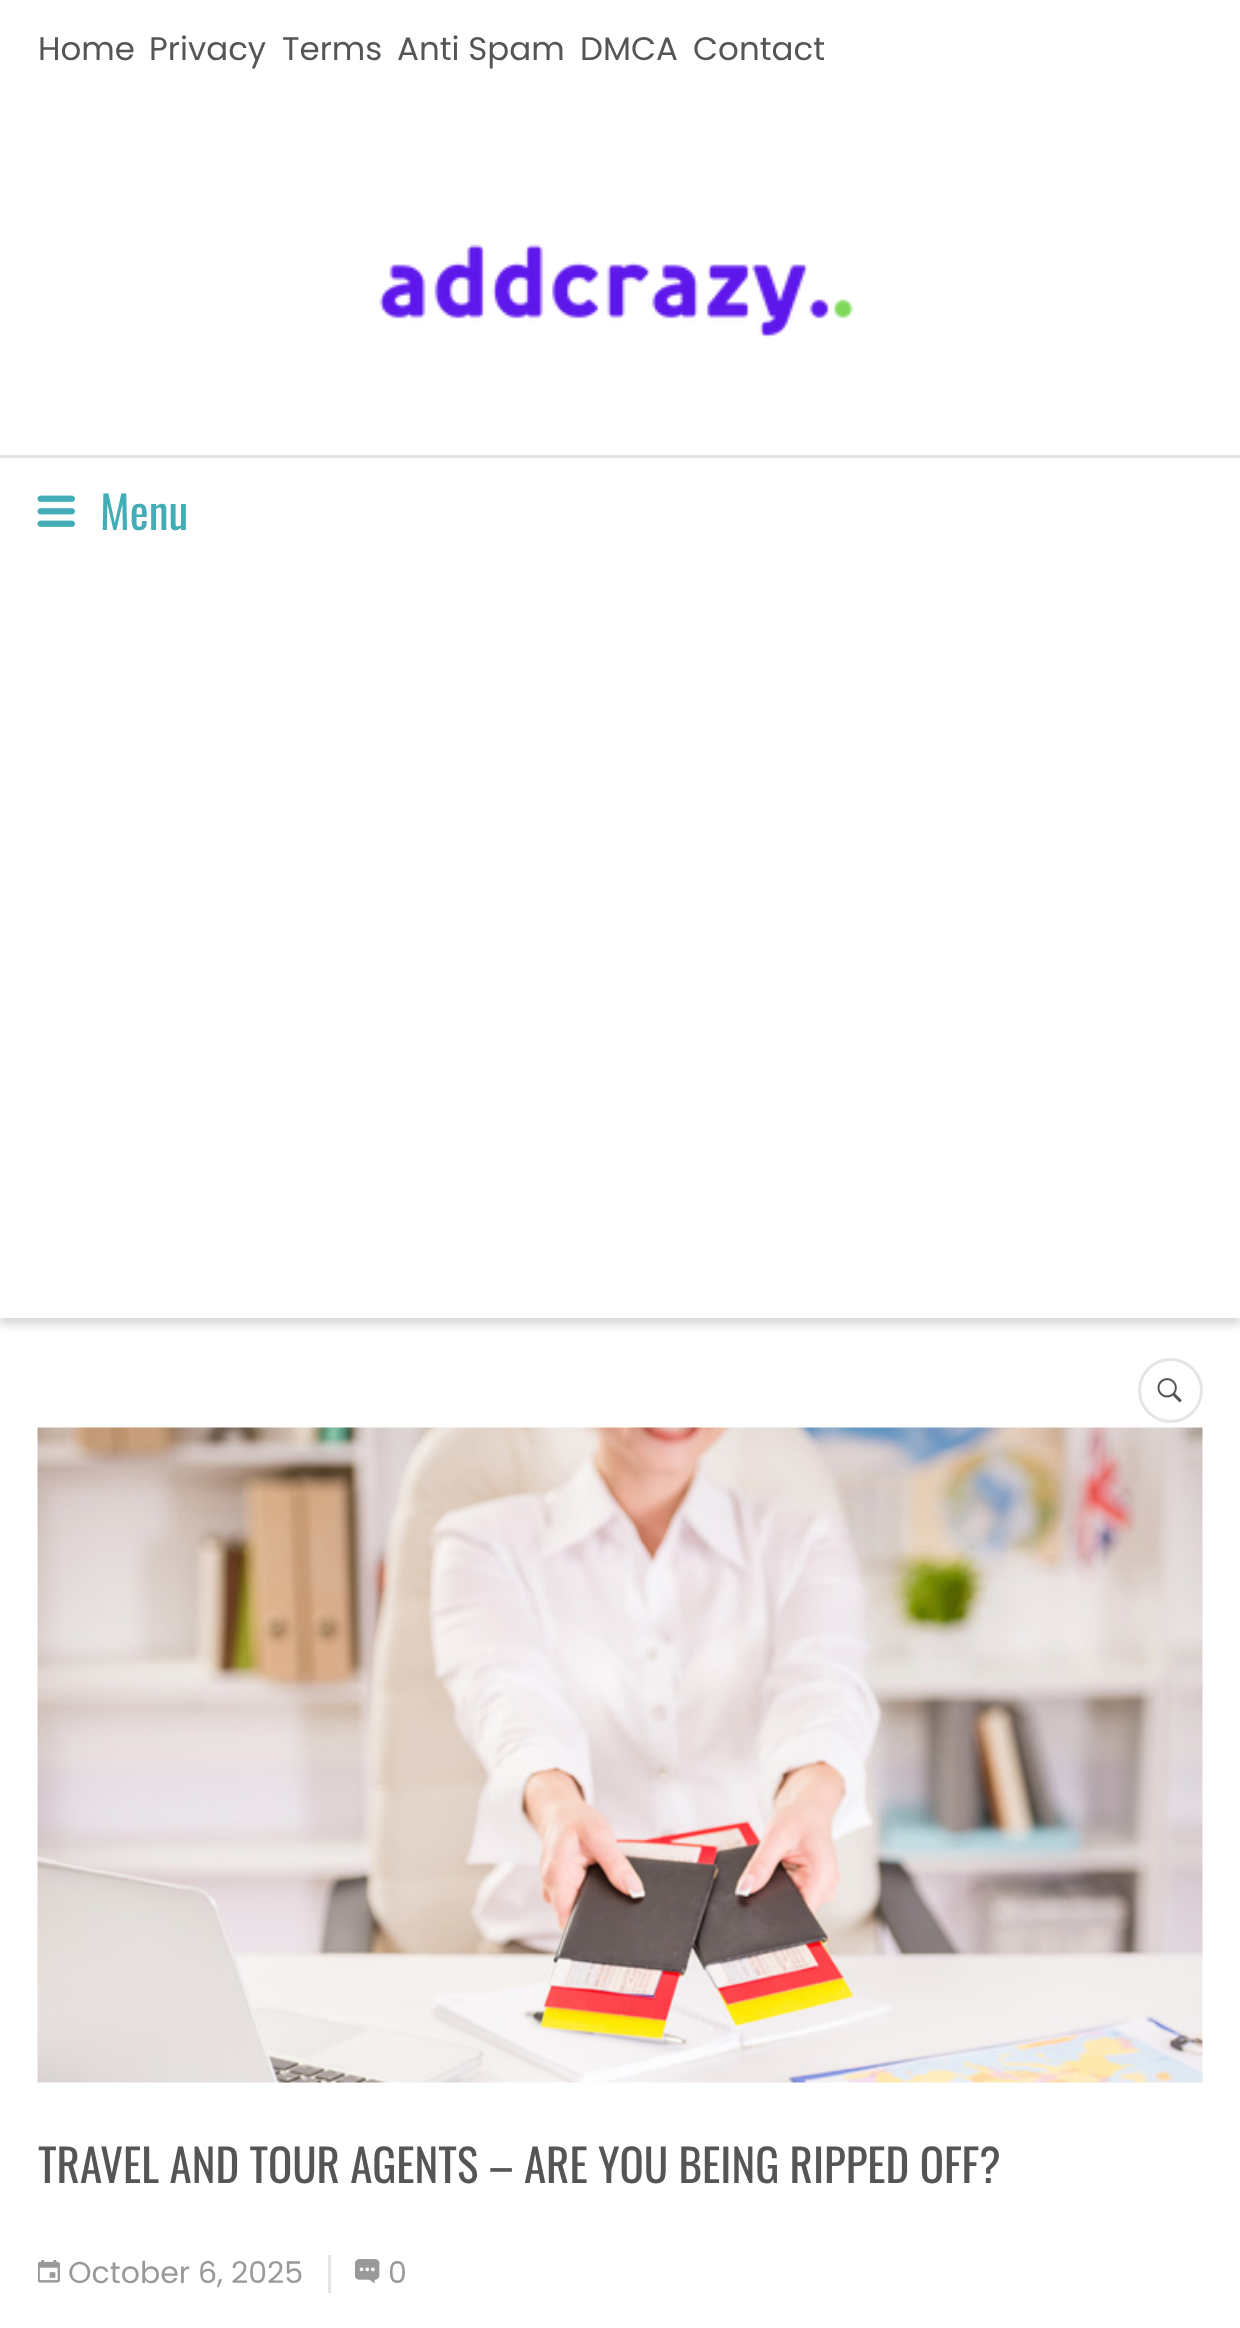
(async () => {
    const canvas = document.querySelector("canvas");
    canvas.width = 1240;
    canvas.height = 2328;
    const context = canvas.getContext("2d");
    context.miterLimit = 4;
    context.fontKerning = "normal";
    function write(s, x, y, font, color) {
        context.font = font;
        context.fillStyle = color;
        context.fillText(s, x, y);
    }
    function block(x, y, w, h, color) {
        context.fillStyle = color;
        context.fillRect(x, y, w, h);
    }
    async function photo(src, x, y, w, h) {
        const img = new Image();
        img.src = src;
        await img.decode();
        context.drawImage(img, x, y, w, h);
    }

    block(0, 0, 1240, 2328, "rgb(255, 255, 255)");
    write("Home", 38, 60, "32.5px Poppins", "rgb(85, 85, 85)");
    write("Privacy", 149, 60, "32.5px Poppins", "rgb(85, 85, 85)");
    write("Terms", 282, 60, "32.5px Poppins", "rgb(85, 85, 85)");
    write("Anti Spam", 397, 60, "32.5px Poppins", "rgb(85, 85, 85)");
    write("DMCA", 580, 60, "32.5px Poppins", "rgb(85, 85, 85)");
    write("Contact", 693, 60, "32.5px Poppins", "rgb(85, 85, 85)");
    await photo("media/1.png", 379, 244, 475, 94);
    context.fillStyle = "rgba(0, 0, 0, 0.15)";
    context.filter = "blur(4px)";
    context.beginPath();
    context.rect(0, 463, 1240, 862);
    context.fill();
    context.filter = "none";
    block(0, 458, 1240, 860, "rgb(255, 255, 255)");
    block(0, 455, 1240, 3, "rgb(229, 229, 229)");
    await photo("media/2.png", 37, 495, 38, 32);
    write("Menu", 100, 530, "45px Oswald", "rgb(66, 173, 182)");
    context.beginPath();
    context.arc(1170.5, 1390.5, 31, 0, Math.PI * 2);
    context.strokeStyle = "rgb(229, 229, 229)";
    context.lineWidth = 3;
    context.stroke();
    await photo("media/3.png", 1157, 1378, 25, 25);
    await photo("media/4.png", 37, 1427, 1166, 656);
    write("TRAVEL AND TOUR AGENTS – ARE YOU BEING RIPPED OFF?", 38, 2183, "45px Oswald", "rgb(85, 85, 85)");
    block(328, 2255, 3, 38, "rgb(229, 229, 229)");
    await photo("media/5.png", 38, 2260, 22, 23);
    write("October 6, 2025", 68, 2283, "30px Poppins", "rgb(153, 153, 153)");
    await photo("media/6.png", 355, 2259, 25, 25);
    write("0", 388, 2283, "30px Poppins", "rgb(153, 153, 153)");
})();
